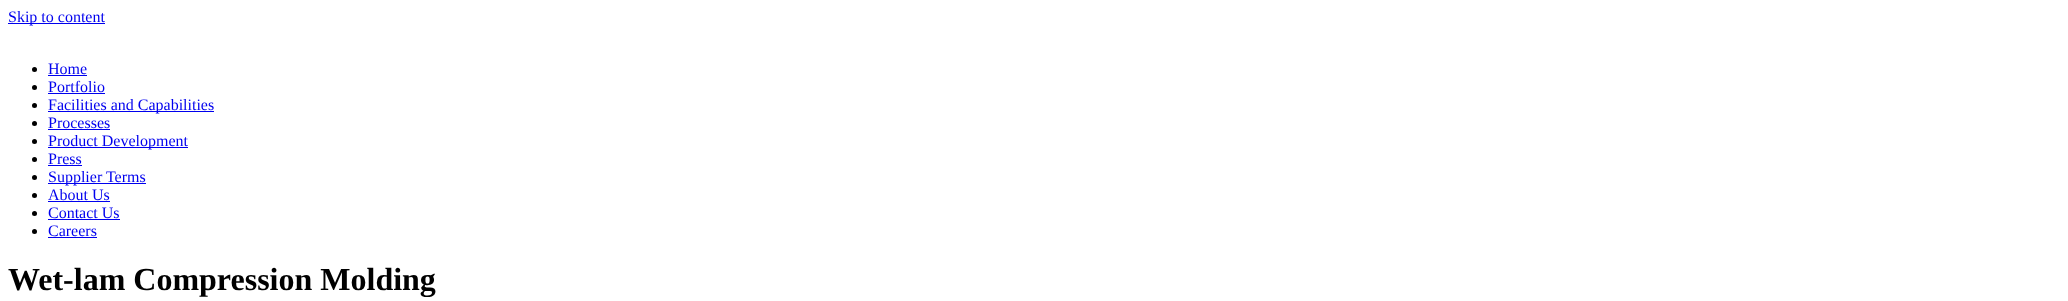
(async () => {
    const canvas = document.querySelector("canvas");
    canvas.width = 2068;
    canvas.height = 301;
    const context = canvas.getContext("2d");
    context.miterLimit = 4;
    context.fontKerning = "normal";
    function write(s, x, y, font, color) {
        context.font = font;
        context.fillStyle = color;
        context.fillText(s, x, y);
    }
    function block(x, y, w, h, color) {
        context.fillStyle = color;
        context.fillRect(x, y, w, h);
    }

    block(0, 0, 2068, 301, "rgb(255, 255, 255)");
    block(8, 23, 97, 1, "rgb(0, 0, 238)");
    write("Skip to content", 8, 22, "16px Liberation Serif", "rgb(0, 0, 238)");
    context.fillStyle = "rgb(0, 0, 0)";
    context.beginPath();
    context.arc(34.5, 69.5, 2.5, 0, Math.PI * 2);
    context.fill();
    write("Home", 48, 74, "16px Liberation Serif", "rgb(0, 0, 238)");
    block(48, 75, 39, 1, "rgb(0, 0, 238)");
    context.fillStyle = "rgb(0, 0, 0)";
    context.beginPath();
    context.arc(34.5, 87.5, 2.5, 0, Math.PI * 2);
    context.fill();
    write("Portfolio", 48, 92, "16px Liberation Serif", "rgb(0, 0, 238)");
    block(48, 93, 57, 1, "rgb(0, 0, 238)");
    context.fillStyle = "rgb(0, 0, 0)";
    context.beginPath();
    context.arc(34.5, 105.5, 2.5, 0, Math.PI * 2);
    context.fill();
    block(48, 111, 166, 1, "rgb(0, 0, 238)");
    write("Facilities and Capabilities", 48, 110, "16px Liberation Serif", "rgb(0, 0, 238)");
    context.fillStyle = "rgb(0, 0, 0)";
    context.beginPath();
    context.arc(34.5, 123.5, 2.5, 0, Math.PI * 2);
    context.fill();
    write("Processes", 48, 128, "16px Liberation Serif", "rgb(0, 0, 238)");
    block(48, 129, 62, 1, "rgb(0, 0, 238)");
    context.fillStyle = "rgb(0, 0, 0)";
    context.beginPath();
    context.arc(34.5, 141.5, 2.5, 0, Math.PI * 2);
    context.fill();
    block(48, 147, 140, 1, "rgb(0, 0, 238)");
    write("Product Development", 48, 146, "16px Liberation Serif", "rgb(0, 0, 238)");
    context.fillStyle = "rgb(0, 0, 0)";
    context.beginPath();
    context.arc(34.5, 159.5, 2.5, 0, Math.PI * 2);
    context.fill();
    write("Press", 48, 164, "16px Liberation Serif", "rgb(0, 0, 238)");
    block(48, 165, 34, 1, "rgb(0, 0, 238)");
    context.fillStyle = "rgb(0, 0, 0)";
    context.beginPath();
    context.arc(34.5, 177.5, 2.5, 0, Math.PI * 2);
    context.fill();
    block(48, 183, 98, 1, "rgb(0, 0, 238)");
    write("Supplier Terms", 48, 182, "16px Liberation Serif", "rgb(0, 0, 238)");
    context.fillStyle = "rgb(0, 0, 0)";
    context.beginPath();
    context.arc(34.5, 195.5, 2.5, 0, Math.PI * 2);
    context.fill();
    write("About Us", 48, 200, "16px Liberation Serif", "rgb(0, 0, 238)");
    block(48, 201, 62, 1, "rgb(0, 0, 238)");
    context.fillStyle = "rgb(0, 0, 0)";
    context.beginPath();
    context.arc(34.5, 213.5, 2.5, 0, Math.PI * 2);
    context.fill();
    write("Contact Us", 48, 218, "16px Liberation Serif", "rgb(0, 0, 238)");
    block(48, 219, 72, 1, "rgb(0, 0, 238)");
    context.fillStyle = "rgb(0, 0, 0)";
    context.beginPath();
    context.arc(34.5, 231.5, 2.5, 0, Math.PI * 2);
    context.fill();
    write("Careers", 48, 236, "16px Liberation Serif", "rgb(0, 0, 238)");
    block(48, 237, 49, 1, "rgb(0, 0, 238)");
    write("Wet-lam Compression Molding", 8, 290, "bold 32px Liberation Serif", "rgb(0, 0, 0)");
})();
